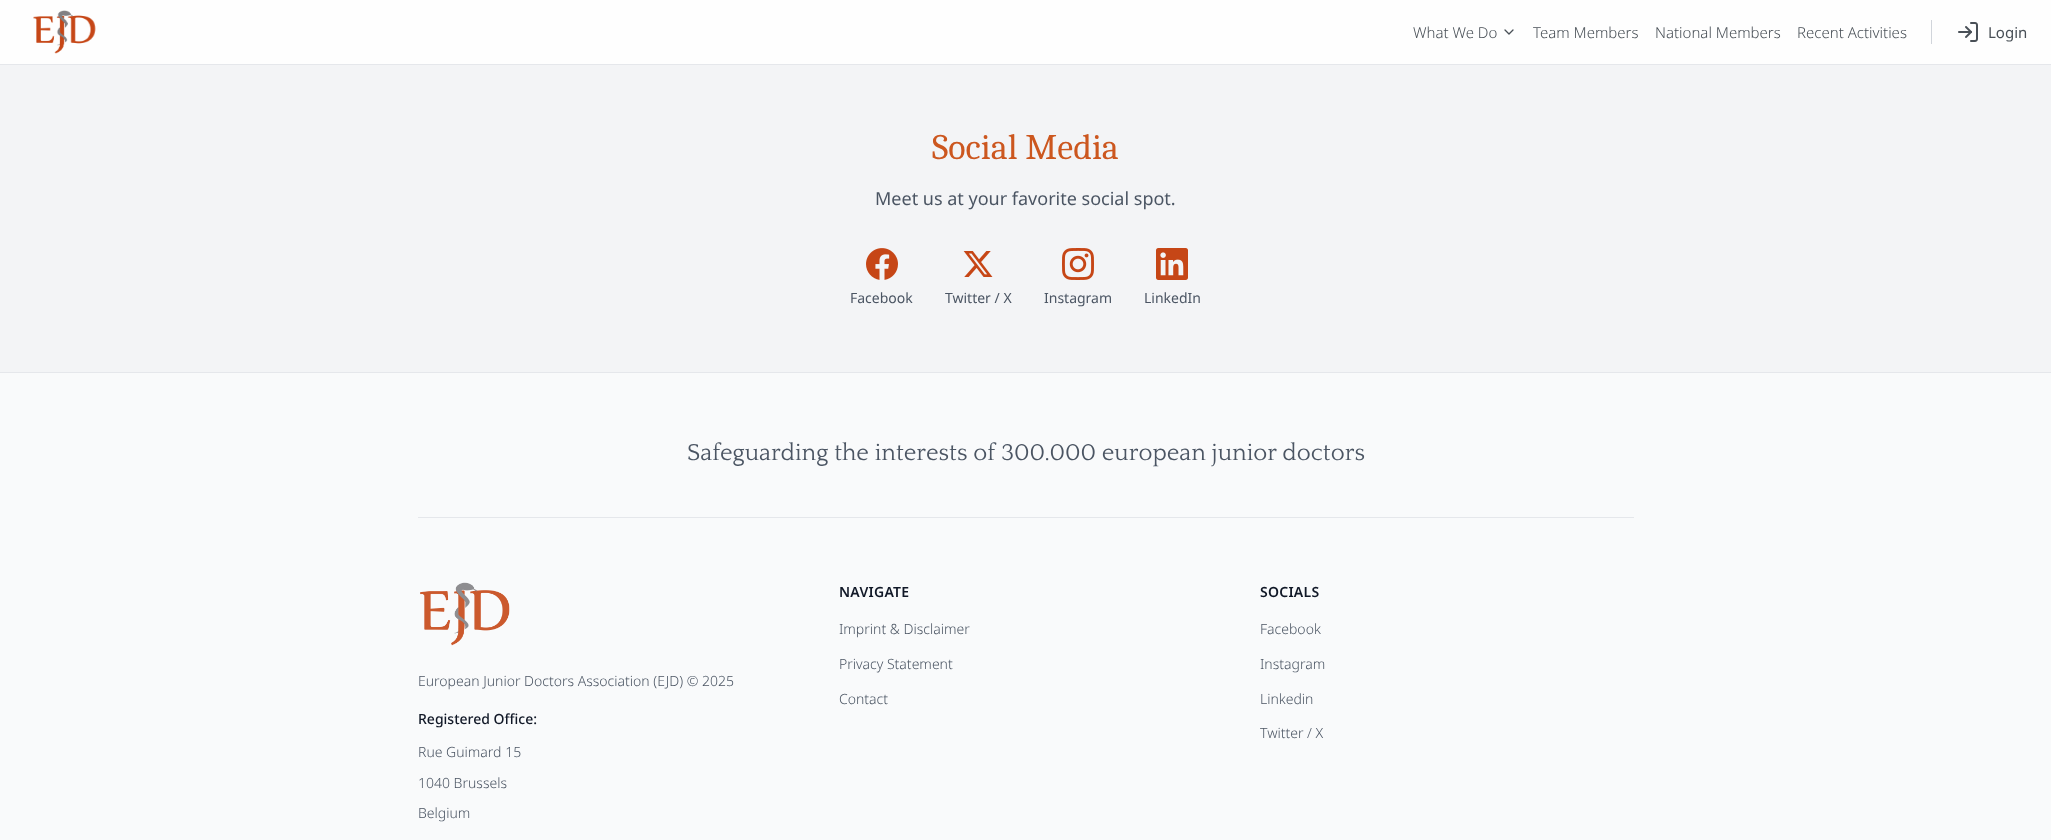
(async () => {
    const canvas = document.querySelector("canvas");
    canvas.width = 2051;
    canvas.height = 840;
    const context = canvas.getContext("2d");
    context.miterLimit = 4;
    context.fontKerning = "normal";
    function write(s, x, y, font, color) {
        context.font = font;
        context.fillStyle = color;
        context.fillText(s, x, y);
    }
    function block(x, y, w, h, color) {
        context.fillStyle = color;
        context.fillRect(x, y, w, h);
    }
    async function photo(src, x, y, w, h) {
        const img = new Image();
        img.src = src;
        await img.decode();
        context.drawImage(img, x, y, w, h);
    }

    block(0, 0, 2051, 840, "rgb(249, 250, 251)");
    block(0, 0, 2051, 64, "rgb(254, 254, 254)");
    block(0, 64, 2051, 1, "rgb(229, 231, 235)");
    await photo("media/1.png", 33, 10, 63, 44);
    write("What We Do", 1413, 38, "300 15px Noto Sans", "rgb(73, 80, 87)");
    context.beginPath();
    context.moveTo(1505, 30);
    context.lineTo(1509, 34);
    context.lineTo(1513, 30);
    context.strokeStyle = "rgb(73, 80, 87)";
    context.lineWidth = 1.3;
    context.lineCap = "round";
    context.lineJoin = "round";
    context.stroke();
    write("Team Members", 1533, 38, "300 15px Noto Sans", "rgb(73, 80, 87)");
    write("National Members", 1655, 38, "300 15px Noto Sans", "rgb(73, 80, 87)");
    write("Recent Activities", 1797, 38, "300 15px Noto Sans", "rgb(73, 80, 87)");
    block(1931, 20, 1, 24, "rgb(209, 213, 219)");
    await photo("media/2.png", 1958, 22, 20, 20);
    write("Login", 1988, 38, "15px Noto Sans", "rgb(73, 80, 87)");
    block(0, 65, 2051, 307, "rgb(243, 244, 246)");
    write("Social Media", 932, 159, "36px Caladea", "rgb(204, 87, 31)");
    write("Meet us at your favorite social spot.", 875, 205, "18px Noto Sans", "rgb(75, 85, 99)");
    await photo("media/3.png", 866, 248, 32, 32);
    write("Facebook", 850, 303, "14px Noto Sans", "rgb(75, 85, 99)");
    await photo("media/4.png", 963, 251, 30, 26);
    write("Twitter / X", 945, 303, "14px Noto Sans", "rgb(75, 85, 99)");
    await photo("media/5.png", 1062, 248, 32, 32);
    write("Instagram", 1044, 303, "14px Noto Sans", "rgb(75, 85, 99)");
    await photo("media/6.png", 1156, 248, 32, 32);
    write("LinkedIn", 1144, 303, "14px Noto Sans", "rgb(75, 85, 99)");
    block(0, 372, 2051, 1, "rgb(229, 231, 235)");
    block(418, 517, 1216, 1, "rgb(229, 231, 235)");
    write("Safeguarding the interests of 300.000 european junior doctors", 687, 460, "24px Quattrocento", "rgb(75, 85, 99)");
    await photo("media/7.png", 420, 582, 90, 64);
    write("European Junior Doctors Association (EJD) © 2025", 418, 686, "300 14px Noto Sans", "rgb(75, 85, 99)");
    write("Registered Office:", 418, 724, "500 14px Noto Sans", "rgb(17, 24, 39)");
    write("Rue Guimard 15", 418, 757, "300 14px Noto Sans", "rgb(75, 85, 99)");
    write("1040 Brussels", 418, 788, "300 14px Noto Sans", "rgb(75, 85, 99)");
    write("Belgium", 418, 818, "300 14px Noto Sans", "rgb(75, 85, 99)");
    context.letterSpacing = "0.25px";
    write("NAVIGATE", 839, 597, "600 14px Noto Sans", "rgb(17, 24, 39)");
    context.letterSpacing = "0px";
    write("Imprint & Disclaimer", 839, 634, "300 14px Noto Sans", "rgb(75, 85, 99)");
    write("Privacy Statement", 839, 669, "300 14px Noto Sans", "rgb(75, 85, 99)");
    write("Contact", 839, 704, "300 14px Noto Sans", "rgb(75, 85, 99)");
    context.letterSpacing = "0.25px";
    write("SOCIALS", 1260, 597, "600 14px Noto Sans", "rgb(17, 24, 39)");
    context.letterSpacing = "0px";
    write("Facebook", 1260, 634, "300 14px Noto Sans", "rgb(75, 85, 99)");
    write("Instagram", 1260, 669, "300 14px Noto Sans", "rgb(75, 85, 99)");
    write("Linkedin", 1260, 704, "300 14px Noto Sans", "rgb(75, 85, 99)");
    write("Twitter / X", 1260, 738, "300 14px Noto Sans", "rgb(75, 85, 99)");
})();
